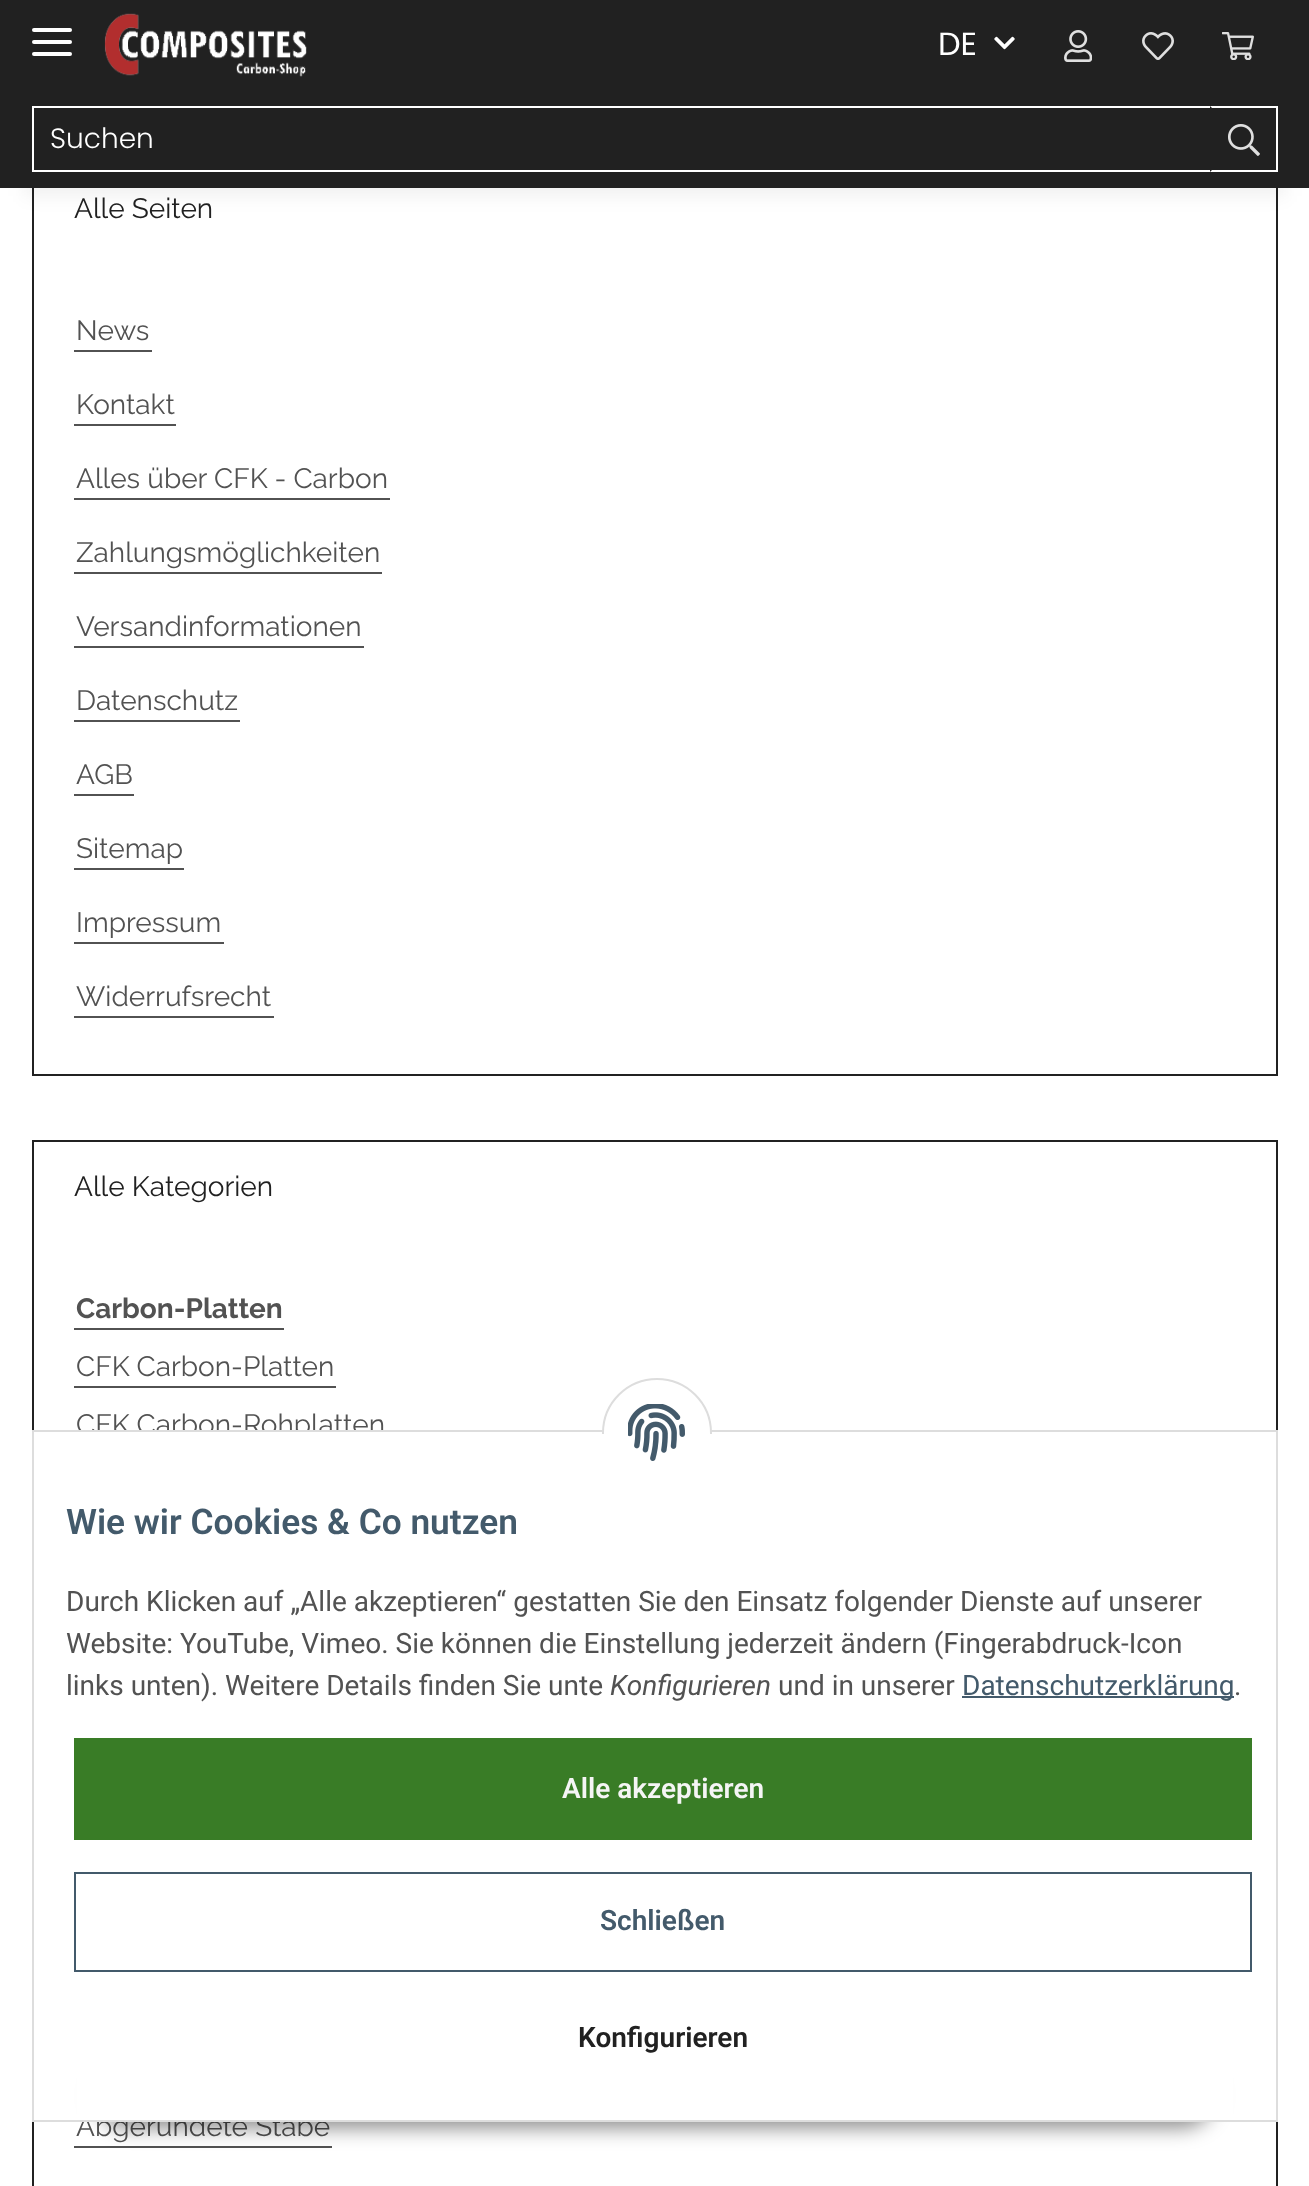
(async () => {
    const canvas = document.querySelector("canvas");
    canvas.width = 1309;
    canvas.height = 2186;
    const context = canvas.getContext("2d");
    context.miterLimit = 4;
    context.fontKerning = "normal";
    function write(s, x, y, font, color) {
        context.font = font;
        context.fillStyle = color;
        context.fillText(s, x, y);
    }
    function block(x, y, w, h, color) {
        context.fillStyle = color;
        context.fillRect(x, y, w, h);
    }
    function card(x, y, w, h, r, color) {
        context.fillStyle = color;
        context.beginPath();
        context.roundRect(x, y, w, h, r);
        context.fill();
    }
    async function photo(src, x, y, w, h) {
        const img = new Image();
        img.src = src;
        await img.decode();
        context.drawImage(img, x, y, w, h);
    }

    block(0, 0, 1309, 2186, "rgb(255, 255, 255)");
    context.strokeStyle = "rgb(33, 33, 33)";
    context.lineWidth = 2;
    context.strokeRect(33, 163, 1244, 912);
    context.fillStyle = "rgba(0, 0, 0, 0.06)";
    context.filter = "blur(9px)";
    context.beginPath();
    context.rect(24, 56, 1262, 140);
    context.fill();
    context.filter = "none";
    block(0, 0, 1309, 188, "rgb(33, 33, 33)");
    card(32, 40, 40, 4, 2, "rgb(255, 255, 255)");
    card(32, 28, 40, 4, 2, "rgb(255, 255, 255)");
    card(32, 52, 40, 4, 2, "rgb(255, 255, 255)");
    await photo("media/1.png", 104, 13, 203, 64);
    write("DE", 938, 55, "32px Poppins", "rgb(255, 255, 255)");
    await photo("media/2.png", 994, 36, 21, 14);
    await photo("media/3.png", 1064, 30, 28, 32);
    await photo("media/4.png", 1142, 32, 32, 28);
    await photo("media/5.png", 1222, 32, 32, 28);
    context.strokeStyle = "rgb(255, 255, 255)";
    context.strokeRect(33, 107, 1178, 64);
    write("Suchen", 50, 148, "300 28px Poppins", "rgb(255, 255, 255)");
    block(1210, 106, 2, 66, "rgb(33, 33, 33)");
    context.fillStyle = "rgb(255, 255, 255)";
    context.beginPath();
    context.moveTo(1210, 106);
    context.lineTo(1278, 106);
    context.lineTo(1276, 108);
    context.lineTo(1212, 108);
    context.closePath();
    context.fill();
    block(1276, 106, 2, 66, "rgb(255, 255, 255)");
    context.beginPath();
    context.moveTo(1278, 172);
    context.lineTo(1210, 172);
    context.lineTo(1212, 170);
    context.lineTo(1276, 170);
    context.closePath();
    context.fill();
    await photo("media/6.png", 1228, 124, 32, 32);
    write("Alle Seiten", 74, 218, "28px Raleway", "rgb(33, 33, 33)");
    write("News", 76, 340, "28px Raleway", "rgb(82, 82, 82)");
    block(74, 350, 78, 2, "rgb(82, 82, 82)");
    write("Kontakt", 76, 414, "28px Raleway", "rgb(82, 82, 82)");
    block(74, 424, 102, 2, "rgb(82, 82, 82)");
    write("Alles über CFK - Carbon", 76, 488, "28px Raleway", "rgb(82, 82, 82)");
    block(74, 498, 316, 2, "rgb(82, 82, 82)");
    write("Zahlungsmöglichkeiten", 76, 562, "28px Raleway", "rgb(82, 82, 82)");
    block(74, 572, 308, 2, "rgb(82, 82, 82)");
    write("Versandinformationen", 76, 636, "28px Raleway", "rgb(82, 82, 82)");
    block(74, 646, 290, 2, "rgb(82, 82, 82)");
    write("Datenschutz", 76, 710, "28px Raleway", "rgb(82, 82, 82)");
    block(74, 720, 166, 2, "rgb(82, 82, 82)");
    write("AGB", 76, 784, "28px Raleway", "rgb(82, 82, 82)");
    block(74, 794, 60, 2, "rgb(82, 82, 82)");
    write("Sitemap", 76, 858, "28px Raleway", "rgb(82, 82, 82)");
    block(74, 868, 110, 2, "rgb(82, 82, 82)");
    write("Impressum", 76, 932, "28px Raleway", "rgb(82, 82, 82)");
    block(74, 942, 150, 2, "rgb(82, 82, 82)");
    write("Widerrufsrecht", 76, 1006, "28px Raleway", "rgb(82, 82, 82)");
    block(74, 1016, 200, 2, "rgb(82, 82, 82)");
    context.strokeStyle = "rgb(33, 33, 33)";
    context.strokeRect(33, 1141, 1244, 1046);
    write("Alle Kategorien", 74, 1196, "28px Raleway", "rgb(33, 33, 33)");
    write("Carbon-Platten", 76, 1318, "bold 28px Raleway", "rgb(82, 82, 82)");
    block(74, 1328, 210, 2, "rgb(82, 82, 82)");
    write("CFK Carbon-Platten", 76, 1376, "28px Raleway", "rgb(82, 82, 82)");
    block(74, 1386, 262, 2, "rgb(82, 82, 82)");
    write("CFK Carbon-Rohplatten", 76, 1434, "28px Raleway", "rgb(82, 82, 82)");
    write("Abgerundete Stäbe", 76, 2136, "28px Raleway", "rgb(82, 82, 82)");
    block(74, 2146, 258, 2, "rgb(82, 82, 82)");
    context.fillStyle = "rgba(0, 0, 0, 0.45)";
    context.filter = "blur(10px)";
    context.beginPath();
    context.roundRect(96, 2064, 1118, 64, 32);
    context.fill();
    context.filter = "none";
    block(77, 1432, 1156, 688, "rgb(255, 255, 255)");
    context.strokeStyle = "rgb(221, 221, 221)";
    context.strokeRect(33, 1431, 1244, 690);
    context.beginPath();
    context.arc(657, 1433, 54, 0, Math.PI * 2);
    context.fill();
    context.stroke();
    block(602, 1434, 110, 54, "rgb(255, 255, 255)");
    await photo("media/7.png", 628, 1404, 57, 57);
    write("Wie wir Cookies & Co nutzen", 66, 1534, "600 35.25px Roboto", "rgb(67, 90, 107)");
    write("Durch Klicken auf „Alle akzeptieren“ gestatten Sie den Einsatz folgender Dienste auf unserer", 66, 1611, "28px Roboto", "rgb(82, 82, 82)");
    write("Website: YouTube, Vimeo. Sie können die Einstellung jederzeit ändern (Fingerabdruck-Icon", 66, 1653, "28px Roboto", "rgb(82, 82, 82)");
    write("links unten). Weitere Details finden Sie unte", 66, 1695, "28px Roboto", "rgb(82, 82, 82)");
    write("Konfigurieren", 610, 1695, "italic 28px Roboto", "rgb(82, 82, 82)");
    write("und in unserer", 778, 1695, "28px Roboto", "rgb(82, 82, 82)");
    block(962, 1696, 272, 2, "rgb(67, 90, 107)");
    write("Datenschutzerklärung", 962, 1695, "28px Roboto", "rgb(67, 90, 107)");
    write(".", 1234, 1695, "28px Roboto", "rgb(82, 82, 82)");
    block(74, 1738, 1178, 102, "rgb(57, 124, 38)");
    write("Alle akzeptieren", 562, 1798, "600 28px Roboto", "rgb(245, 245, 245)");
    context.strokeStyle = "rgb(67, 90, 107)";
    context.strokeRect(75, 1873, 1176, 98);
    write("Schließen", 600, 1930, "600 28px Roboto", "rgb(67, 90, 107)");
    write("Konfigurieren", 578, 2047, "600 28px Roboto", "rgb(33, 33, 33)");
})();
